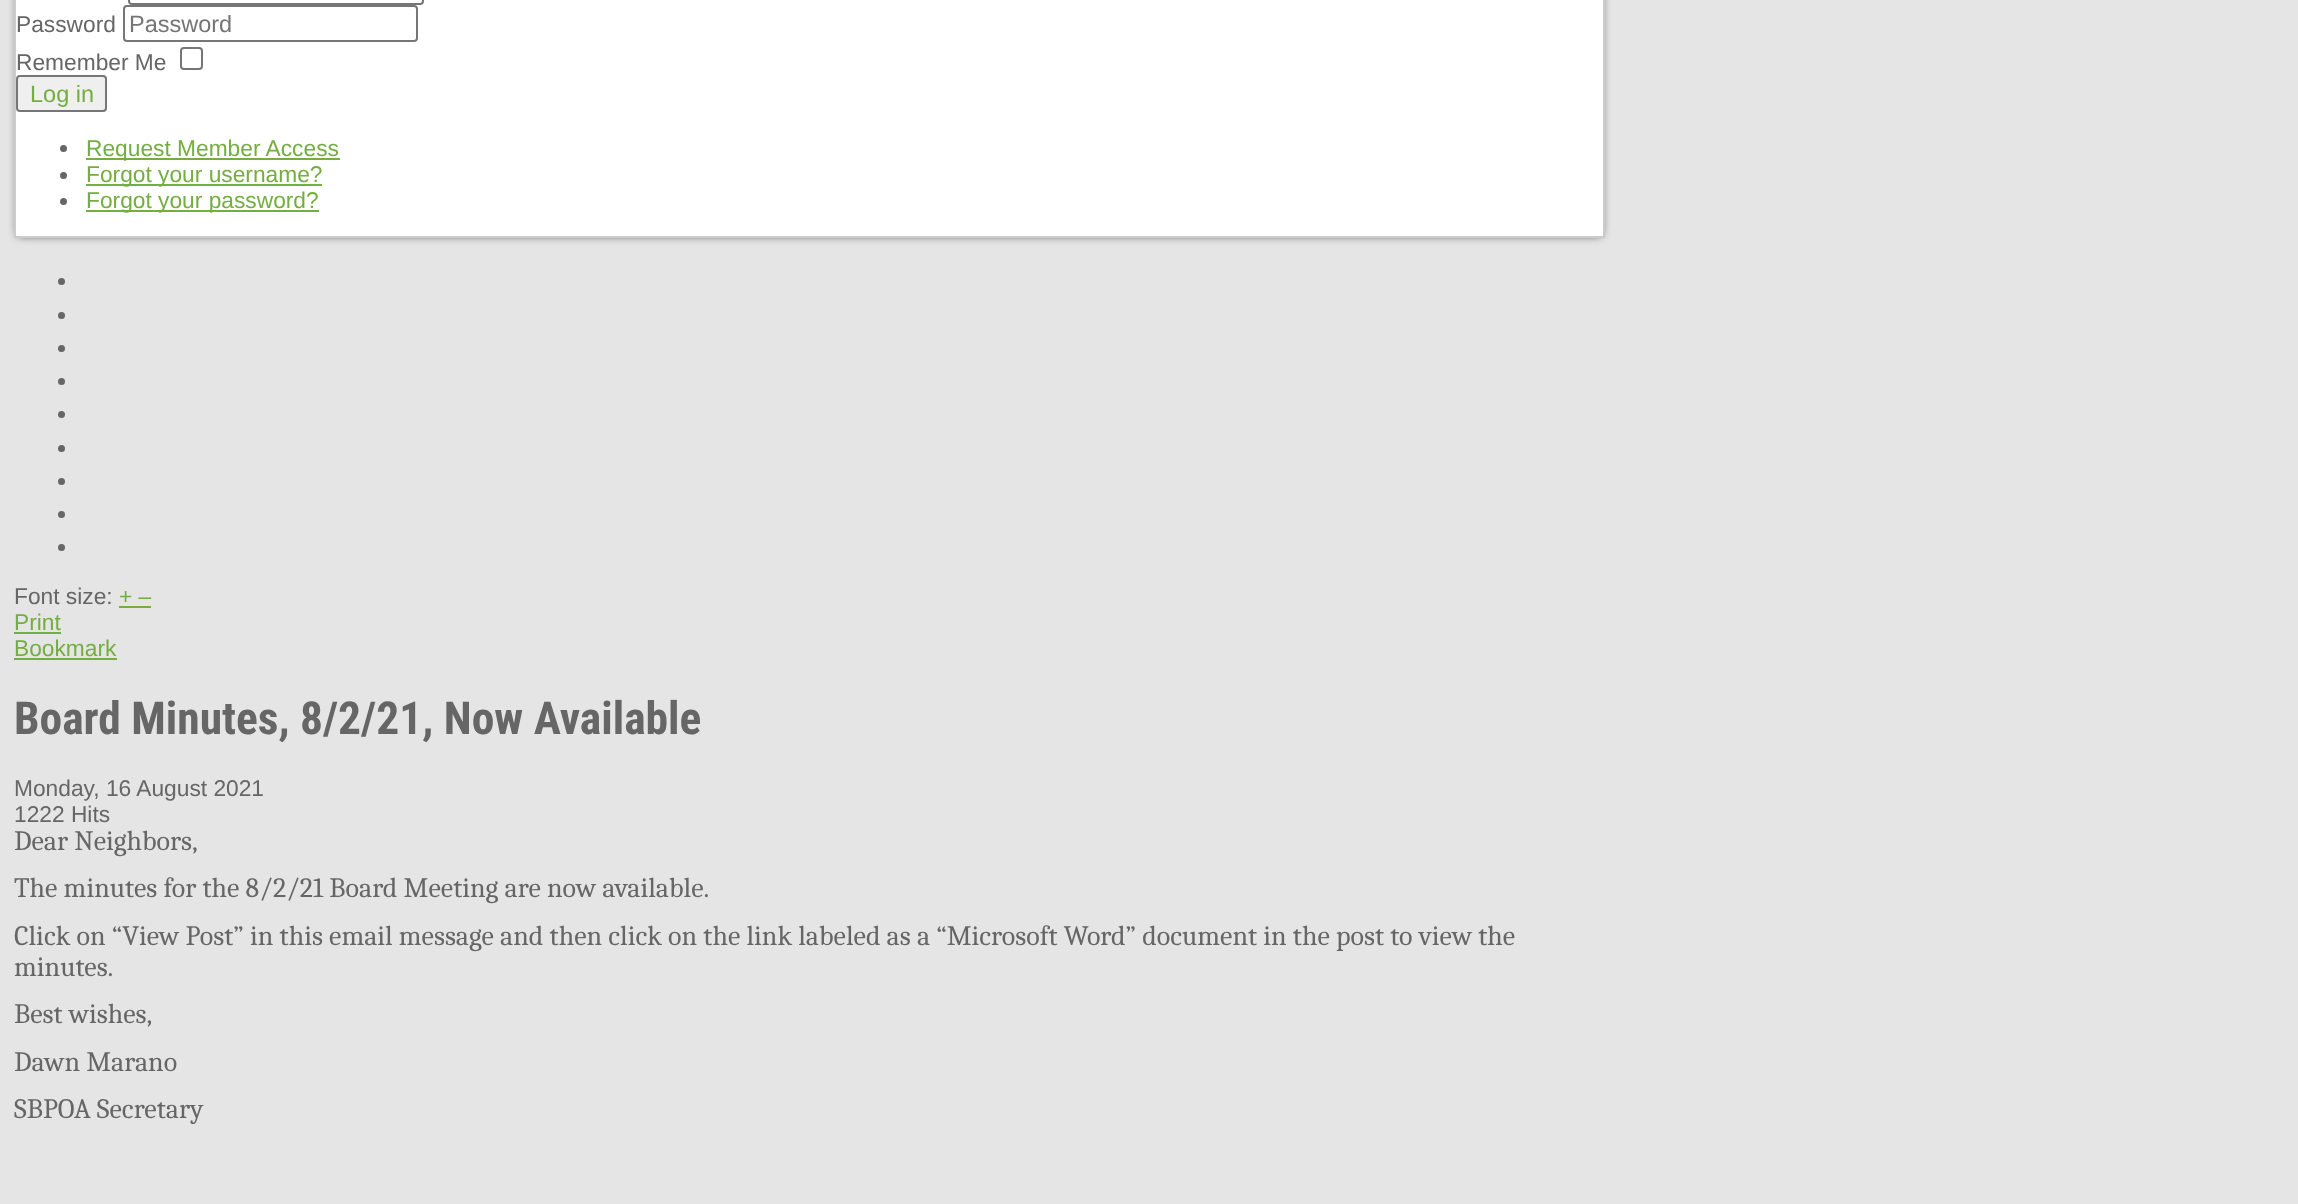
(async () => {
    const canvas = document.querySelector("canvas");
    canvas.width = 2298;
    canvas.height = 1204;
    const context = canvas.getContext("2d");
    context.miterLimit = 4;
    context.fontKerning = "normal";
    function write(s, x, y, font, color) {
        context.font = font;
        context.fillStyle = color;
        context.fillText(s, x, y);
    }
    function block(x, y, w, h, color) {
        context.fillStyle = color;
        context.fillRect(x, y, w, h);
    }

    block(0, 0, 2298, 1204, "rgb(229, 229, 229)");
    context.fillStyle = "rgb(36, 36, 36)";
    context.filter = "blur(5px)";
    context.beginPath();
    context.rect(18, -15, 1583, 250);
    context.fill();
    context.filter = "none";
    context.fillStyle = "rgb(255, 255, 255)";
    context.beginPath();
    context.rect(15, -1, 1589, 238);
    context.fill();
    context.strokeStyle = "rgb(204, 204, 204)";
    context.lineWidth = 2;
    context.stroke();
    context.beginPath();
    context.roundRect(129, -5, 294, 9, 3);
    context.strokeStyle = "rgb(118, 118, 118)";
    context.stroke();
    write("Password", 16, 32, "22.75px Liberation Sans", "rgb(102, 102, 102)");
    context.beginPath();
    context.roundRect(124, 6, 293, 35, 3);
    context.stroke();
    write("Password", 129, 32, "23.5px Liberation Sans", "rgb(117, 117, 117)");
    write("Remember Me", 16, 70, "22.75px Liberation Sans", "rgb(102, 102, 102)");
    context.beginPath();
    context.roundRect(181, 48, 21, 21, 3);
    context.stroke();
    context.fillStyle = "rgb(239, 239, 239)";
    context.beginPath();
    context.roundRect(17, 76, 89, 35, 3);
    context.fill();
    context.stroke();
    write("Log in", 30, 102, "23.5px Liberation Sans", "rgb(116, 174, 64)");
    context.fillStyle = "rgb(102, 102, 102)";
    context.beginPath();
    context.arc(63.5, 148.5, 3.5, 0, Math.PI * 2);
    context.fill();
    block(86, 158, 254, 2, "rgb(116, 174, 64)");
    write("Request Member Access", 86, 156, "22.75px Liberation Sans", "rgb(116, 174, 64)");
    context.fillStyle = "rgb(102, 102, 102)";
    context.beginPath();
    context.arc(63.5, 175.5, 3.5, 0, Math.PI * 2);
    context.fill();
    block(86, 184, 236, 2, "rgb(116, 174, 64)");
    write("Forgot your username?", 86, 182, "22.75px Liberation Sans", "rgb(116, 174, 64)");
    context.fillStyle = "rgb(102, 102, 102)";
    context.beginPath();
    context.arc(63.5, 201.5, 3.5, 0, Math.PI * 2);
    context.fill();
    block(86, 210, 233, 2, "rgb(116, 174, 64)");
    write("Forgot your password?", 86, 208, "22.75px Liberation Sans", "rgb(116, 174, 64)");
    context.fillStyle = "rgb(102, 102, 102)";
    context.beginPath();
    context.arc(61.5, 281.5, 3.5, 0, Math.PI * 2);
    context.fill();
    context.beginPath();
    context.arc(61.5, 315.5, 3.5, 0, Math.PI * 2);
    context.fill();
    context.beginPath();
    context.arc(61.5, 348.5, 3.5, 0, Math.PI * 2);
    context.fill();
    context.beginPath();
    context.arc(61.5, 381.5, 3.5, 0, Math.PI * 2);
    context.fill();
    context.beginPath();
    context.arc(61.5, 414.5, 3.5, 0, Math.PI * 2);
    context.fill();
    context.beginPath();
    context.arc(61.5, 448.5, 3.5, 0, Math.PI * 2);
    context.fill();
    context.beginPath();
    context.arc(61.5, 481.5, 3.5, 0, Math.PI * 2);
    context.fill();
    context.beginPath();
    context.arc(61.5, 514.5, 3.5, 0, Math.PI * 2);
    context.fill();
    context.beginPath();
    context.arc(61.5, 547.5, 3.5, 0, Math.PI * 2);
    context.fill();
    write("Font size:", 14, 604, "22.75px Liberation Sans", "rgb(102, 102, 102)");
    write("+ –", 119, 604, "22.75px Liberation Sans", "rgb(116, 174, 64)");
    block(119, 606, 32, 2, "rgb(116, 174, 64)");
    write("Print", 14, 630, "22.75px Liberation Sans", "rgb(116, 174, 64)");
    block(14, 632, 47, 2, "rgb(116, 174, 64)");
    write("Bookmark", 14, 656, "22.75px Liberation Sans", "rgb(116, 174, 64)");
    block(14, 658, 103, 2, "rgb(116, 174, 64)");
    write("Board Minutes, 8/2/21, Now Available", 14, 734, "bold 45.5px Roboto Condensed", "rgb(102, 102, 102)");
    write("Monday, 16 August 2021", 14, 796, "22.75px Liberation Sans", "rgb(102, 102, 102)");
    write("1222 Hits", 14, 822, "22.75px Liberation Sans", "rgb(102, 102, 102)");
    write("Dear Neighbors,", 14, 850, "28px Caladea", "rgb(102, 102, 102)");
    write("The minutes for the 8/2/21 Board Meeting are now available.", 14, 897, "28px Caladea", "rgb(102, 102, 102)");
    write("Click on “View Post” in this email message and then click on the link labeled as a “Microsoft Word” document in the post to view the", 14, 945, "28px Caladea", "rgb(102, 102, 102)");
    write("minutes.", 14, 976, "28px Caladea", "rgb(102, 102, 102)");
    write("Best wishes,", 14, 1023, "28px Caladea", "rgb(102, 102, 102)");
    write("Dawn Marano", 14, 1071, "28px Caladea", "rgb(102, 102, 102)");
    write("SBPOA Secretary", 14, 1118, "28px Caladea", "rgb(102, 102, 102)");
})();
